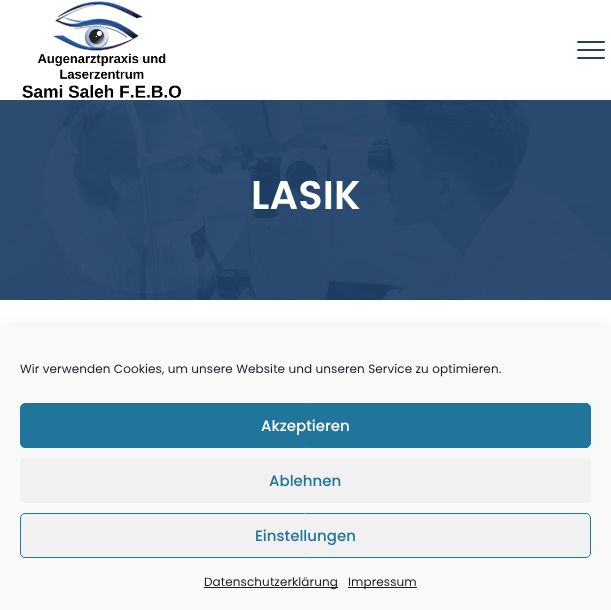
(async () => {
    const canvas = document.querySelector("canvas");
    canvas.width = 611;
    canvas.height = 610;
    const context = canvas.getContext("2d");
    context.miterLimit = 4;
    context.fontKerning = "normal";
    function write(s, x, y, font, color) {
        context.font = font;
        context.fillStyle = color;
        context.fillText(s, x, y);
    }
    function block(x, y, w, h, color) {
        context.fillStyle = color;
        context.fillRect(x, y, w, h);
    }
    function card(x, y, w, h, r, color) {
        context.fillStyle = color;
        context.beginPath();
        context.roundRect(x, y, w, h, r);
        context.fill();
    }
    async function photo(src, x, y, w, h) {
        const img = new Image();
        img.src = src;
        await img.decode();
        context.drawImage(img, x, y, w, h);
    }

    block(0, 0, 611, 610, "rgb(255, 255, 255)");
    await photo("media/1.png", 22, 1, 159, 97);
    card(577, 49, 28, 2, 1, "rgb(32, 64, 102)");
    card(577, 41, 28, 2, 1, "rgb(32, 64, 102)");
    card(577, 57, 28, 2, 1, "rgb(32, 64, 102)");
    await photo("media/2.png", 0, 100, 611, 200);
    context.letterSpacing = "0.1px";
    write("LASIK", 251, 209, "600 40px Poppins", "rgb(255, 255, 255)");
    context.fillStyle = "rgba(0, 0, 0, 0.19)";
    context.filter = "blur(10px)";
    context.beginPath();
    context.rect(0, 335, 611, 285);
    context.fill();
    context.filter = "none";
    block(0, 326, 611, 284, "rgb(249, 249, 249)");
    write("Wir verwenden Cookies, um unsere Website und unseren Service zu optimieren.", 20, 373, "12px Poppins", "rgb(25, 30, 35)");
    context.fillStyle = "rgb(33, 117, 155)";
    context.beginPath();
    context.roundRect(20.5, 403.5, 570, 44, 4.5);
    context.fill();
    context.strokeStyle = "rgb(33, 117, 155)";
    context.stroke();
    context.letterSpacing = "0px";
    write("Akzeptieren", 261, 431, "500 15px Poppins", "rgb(255, 255, 255)");
    card(20, 458, 571, 45, 5, "rgb(241, 241, 241)");
    write("Ablehnen", 269, 486, "500 15px Poppins", "rgb(33, 117, 155)");
    context.fillStyle = "rgb(241, 241, 241)";
    context.beginPath();
    context.roundRect(20.5, 513.5, 570, 44, 4.5);
    context.fill();
    context.stroke();
    write("Einstellungen", 255, 541, "500 15px Poppins", "rgb(33, 117, 155)");
    block(204, 587, 134, 1, "rgb(25, 30, 35)");
    context.letterSpacing = "0.1px";
    write("Datenschutzerklärung", 204, 586, "12px Poppins", "rgb(25, 30, 35)");
    block(348, 587, 69, 1, "rgb(25, 30, 35)");
    write("Impressum", 348, 586, "12px Poppins", "rgb(25, 30, 35)");
})();
